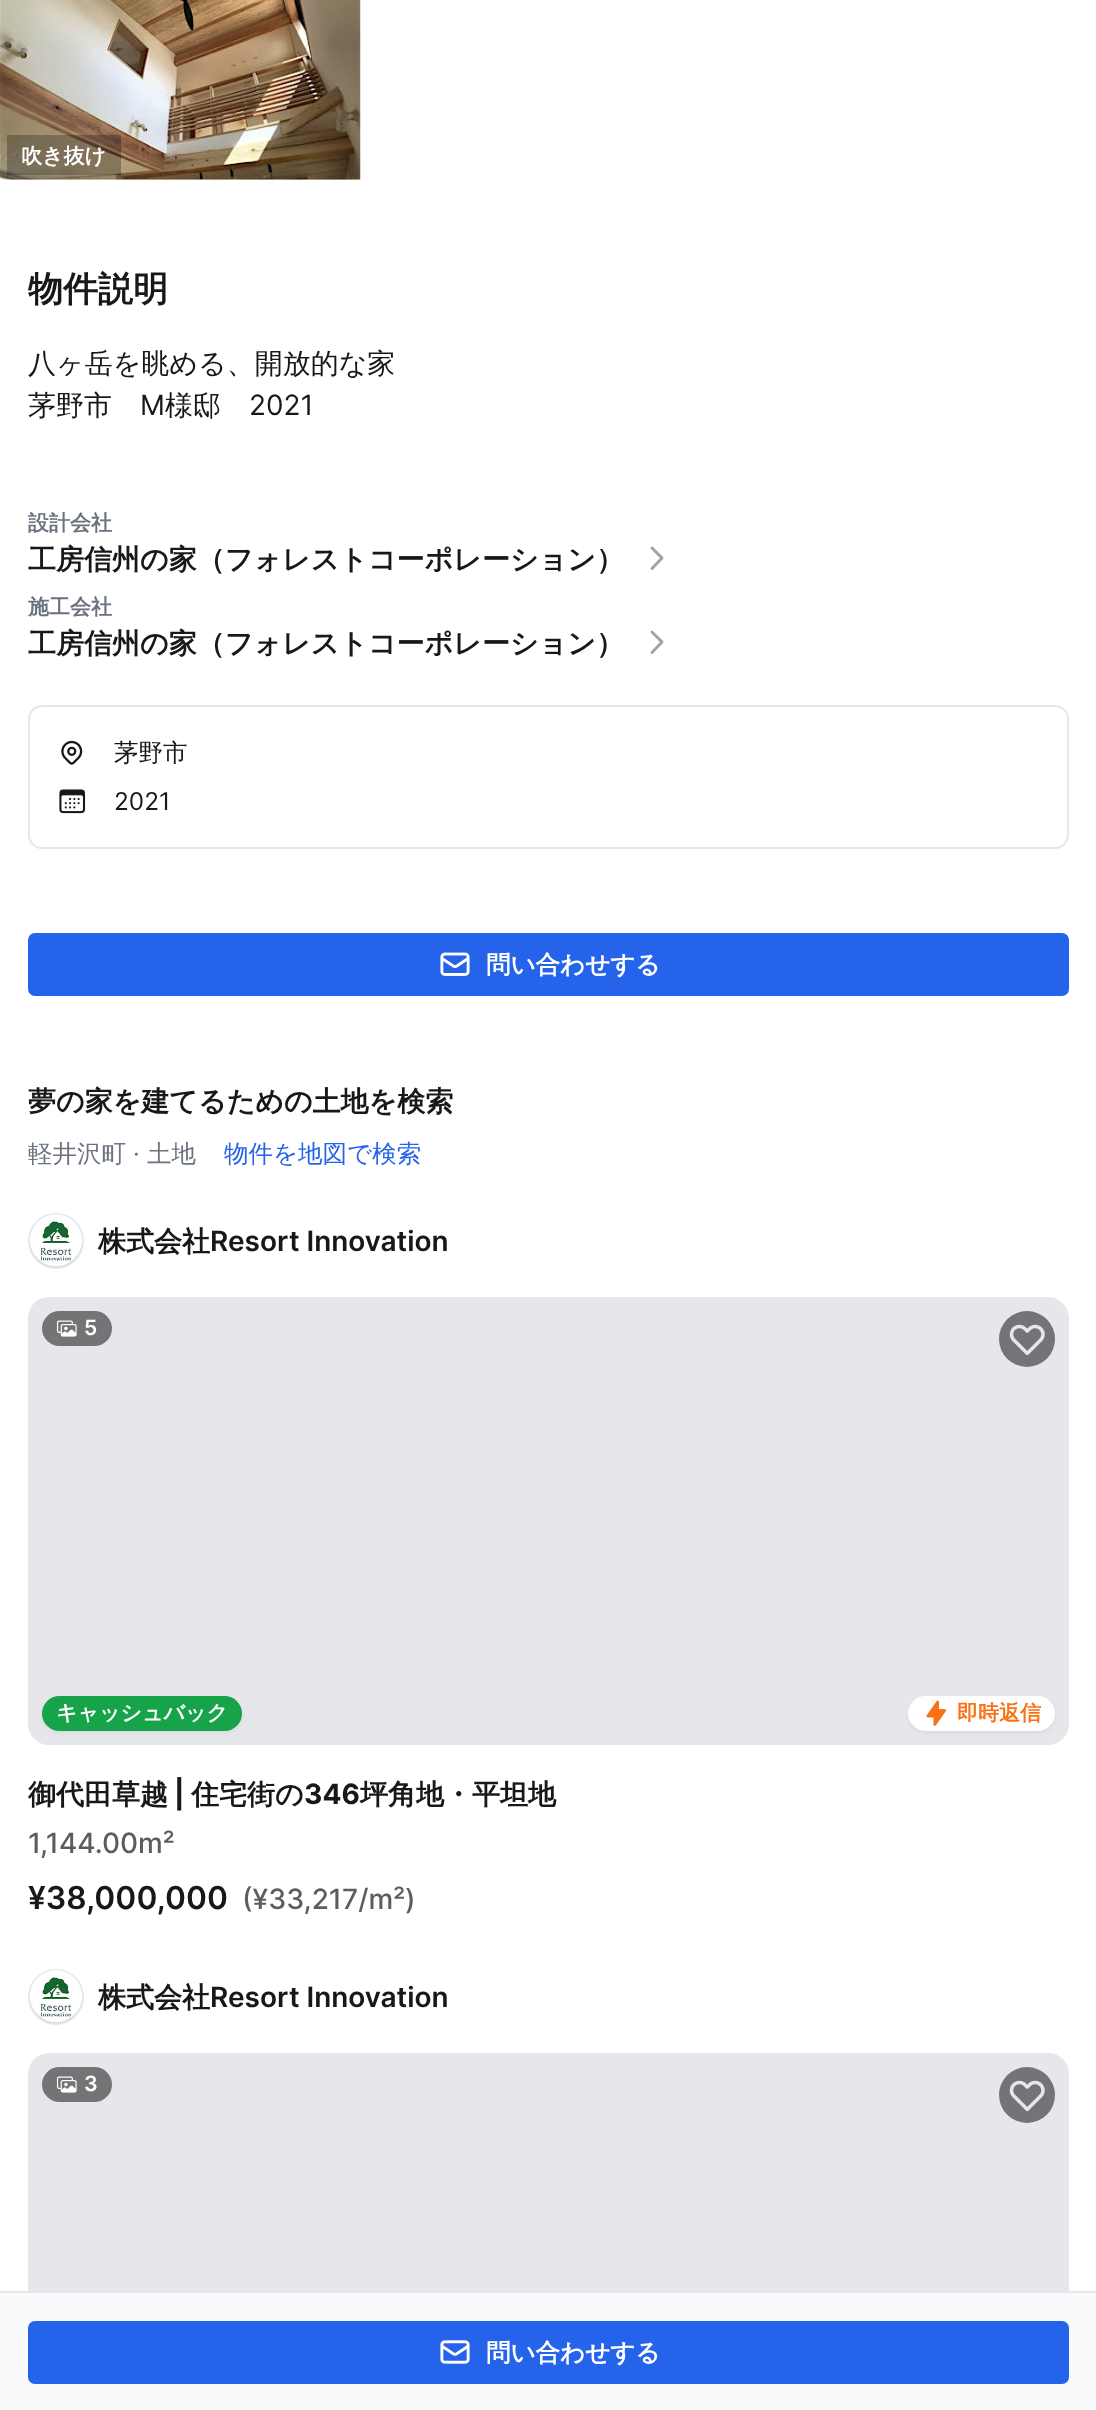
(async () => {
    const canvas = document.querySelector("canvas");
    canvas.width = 1096;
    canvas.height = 2410;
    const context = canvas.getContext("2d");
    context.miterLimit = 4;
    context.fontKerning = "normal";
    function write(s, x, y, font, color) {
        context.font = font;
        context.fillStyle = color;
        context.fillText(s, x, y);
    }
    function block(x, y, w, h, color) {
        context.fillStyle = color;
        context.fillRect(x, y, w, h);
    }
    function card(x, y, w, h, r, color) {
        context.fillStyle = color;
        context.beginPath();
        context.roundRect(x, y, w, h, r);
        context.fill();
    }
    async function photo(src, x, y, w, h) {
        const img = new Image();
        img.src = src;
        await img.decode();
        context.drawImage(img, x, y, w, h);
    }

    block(0, 0, 1096, 2410, "rgb(255, 255, 255)");
    await photo("media/1.png", 0, 0, 361, 180);
    block(7, 135, 114, 40, "rgba(0, 0, 0, 0.25)");
    write("吹き抜け", 21, 163, "bold 21px WenQuanYi Zen Hei", "rgb(255, 255, 255)");
    write("物件説明", 28, 301, "bold 35px WenQuanYi Zen Hei", "rgb(24, 24, 27)");
    write("八ヶ岳を眺める、開放的な家", 28, 373, "500 28px WenQuanYi Zen Hei", "rgb(24, 24, 27)");
    write("茅野市", 28, 415, "500 28px WenQuanYi Zen Hei", "rgb(24, 24, 27)");
    write("M", 140, 415, "28px Inter", "rgb(24, 24, 27)");
    write("様邸", 165, 415, "500 28px WenQuanYi Zen Hei", "rgb(24, 24, 27)");
    write("2021", 249, 415, "28px Inter", "rgb(24, 24, 27)");
    write("設計会社", 28, 530, "bold 21px WenQuanYi Zen Hei", "rgb(107, 114, 128)");
    write("工房信州の家（フォレストコーポレーション）", 28, 569, "bold 28px WenQuanYi Zen Hei", "rgb(24, 24, 27)");
    context.beginPath();
    context.moveTo(652, 548);
    context.lineTo(662, 558);
    context.lineTo(652, 568.5);
    context.strokeStyle = "rgb(156, 163, 175)";
    context.lineWidth = 2.9;
    context.lineCap = "round";
    context.lineJoin = "round";
    context.stroke();
    write("施工会社", 28, 614, "bold 21px WenQuanYi Zen Hei", "rgb(107, 114, 128)");
    write("工房信州の家（フォレストコーポレーション）", 28, 653, "bold 28px WenQuanYi Zen Hei", "rgb(24, 24, 27)");
    context.beginPath();
    context.moveTo(652, 632);
    context.lineTo(662, 642);
    context.lineTo(652, 652.5);
    context.stroke();
    context.beginPath();
    context.roundRect(29, 706, 1039, 142, 13);
    context.strokeStyle = "rgb(229, 231, 235)";
    context.lineWidth = 2;
    context.lineJoin = "miter";
    context.stroke();
    await photo("media/2.png", 61, 740, 22, 25);
    write("茅野市", 114, 761, "500 24.5px WenQuanYi Zen Hei", "rgb(24, 24, 27)");
    await photo("media/3.png", 59, 789, 27, 25);
    write("2021", 114, 810, "24.5px Inter", "rgb(24, 24, 27)");
    card(28, 933, 1041, 63, 7, "rgb(37, 99, 235)");
    await photo("media/4.png", 440, 952, 30, 24);
    write("問い合わせする", 486, 973, "bold 24.5px WenQuanYi Zen Hei", "rgb(255, 255, 255)");
    write("夢の家を建てるための土地を検索", 28, 1111, "bold 28px WenQuanYi Zen Hei", "rgb(24, 24, 27)");
    write("軽井沢町", 28, 1162, "500 24.5px WenQuanYi Zen Hei", "rgb(107, 114, 128)");
    write("·", 133, 1162, "24.5px Inter", "rgb(107, 114, 128)");
    write("土地", 147, 1162, "500 24.5px WenQuanYi Zen Hei", "rgb(107, 114, 128)");
    write("物件を地図で検索", 224, 1162, "500 24.5px WenQuanYi Zen Hei", "rgb(37, 99, 235)");
    context.fillStyle = "rgb(209, 213, 219)";
    context.beginPath();
    context.arc(56, 1241, 27, 0, Math.PI * 2);
    context.fill();
    context.stroke();
    await photo("media/5.png", 30, 1214, 52, 53);
    write("株式会社", 98, 1251, "bold 28px WenQuanYi Zen Hei", "rgb(24, 24, 27)");
    write("Resort Innovation", 210, 1251, "600 28px Inter", "rgb(24, 24, 27)");
    card(28, 1297, 1041, 448, 21, "rgb(229, 231, 235)");
    context.fillStyle = "rgb(115, 116, 118)";
    context.beginPath();
    context.arc(1027, 1339, 28, 0, Math.PI * 2);
    context.fill();
    await photo("media/6.png", 1009, 1324, 36, 32);
    card(42, 1311, 70, 35, 17.5, "rgb(115, 116, 118)");
    await photo("media/7.png", 56, 1320, 21, 17);
    write("5", 84, 1335, "600 21px Inter", "rgb(255, 255, 255)");
    context.fillStyle = "rgba(0, 0, 0, 0.05)";
    context.filter = "blur(2px)";
    context.beginPath();
    context.roundRect(42, 1698, 200, 35, 17.5);
    context.fill();
    context.filter = "none";
    card(42, 1696, 200, 35, 17.5, "rgb(22, 163, 74)");
    write("キャッシュバック", 56, 1720, "bold 21px WenQuanYi Zen Hei", "rgb(255, 255, 255)");
    context.fillStyle = "rgba(0, 0, 0, 0.05)";
    context.filter = "blur(2px)";
    context.beginPath();
    context.roundRect(908, 1698, 147, 35, 17.5);
    context.fill();
    context.filter = "none";
    card(908, 1696, 147, 35, 17.5, "rgb(255, 255, 255)");
    await photo("media/8.png", 926, 1700, 20, 26);
    write("即時返信", 957, 1720, "bold 21px WenQuanYi Zen Hei", "rgb(249, 115, 22)");
    write("御代田草越", 28, 1804, "bold 28px WenQuanYi Zen Hei", "rgb(24, 24, 27)");
    write("|", 174, 1804, "bold 28px Inter", "rgb(24, 24, 27)");
    write("住宅街の", 191, 1804, "bold 28px WenQuanYi Zen Hei", "rgb(24, 24, 27)");
    write("346", 304, 1804, "bold 28px Inter", "rgb(24, 24, 27)");
    write("坪角地・平坦地", 360, 1804, "bold 28px WenQuanYi Zen Hei", "rgb(24, 24, 27)");
    write("1,144.00m²", 28, 1853, "500 28px Inter", "rgb(93, 93, 95)");
    write("¥38,000,000", 28, 1909, "600 31.5px Inter", "rgb(24, 24, 27)");
    write("(¥33,217/m²)", 242, 1909, "500 28px Inter", "rgb(93, 93, 95)");
    context.fillStyle = "rgb(209, 213, 219)";
    context.beginPath();
    context.arc(56, 1997, 27, 0, Math.PI * 2);
    context.fill();
    context.stroke();
    await photo("media/9.png", 30, 1970, 52, 53);
    write("株式会社", 98, 2007, "bold 28px WenQuanYi Zen Hei", "rgb(24, 24, 27)");
    write("Resort Innovation", 210, 2007, "600 28px Inter", "rgb(24, 24, 27)");
    card(28, 2053, 1041, 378, 21, "rgb(229, 231, 235)");
    card(42, 2067, 70, 35, 17.5, "rgb(115, 116, 118)");
    await photo("media/7.png", 56, 2076, 21, 17);
    write("3", 84, 2091, "600 21px Inter", "rgb(255, 255, 255)");
    context.fillStyle = "rgb(115, 116, 118)";
    context.beginPath();
    context.arc(1027, 2095, 28, 0, Math.PI * 2);
    context.fill();
    await photo("media/6.png", 1009, 2080, 36, 32);
    block(0, 2293, 1096, 117, "rgb(249, 250, 251)");
    block(0, 2291, 1096, 2, "rgb(229, 231, 235)");
    card(28, 2321, 1041, 63, 7, "rgb(37, 99, 235)");
    await photo("media/10.png", 440, 2340, 30, 24);
    write("問い合わせする", 486, 2361, "bold 24.5px WenQuanYi Zen Hei", "rgb(255, 255, 255)");
})();
